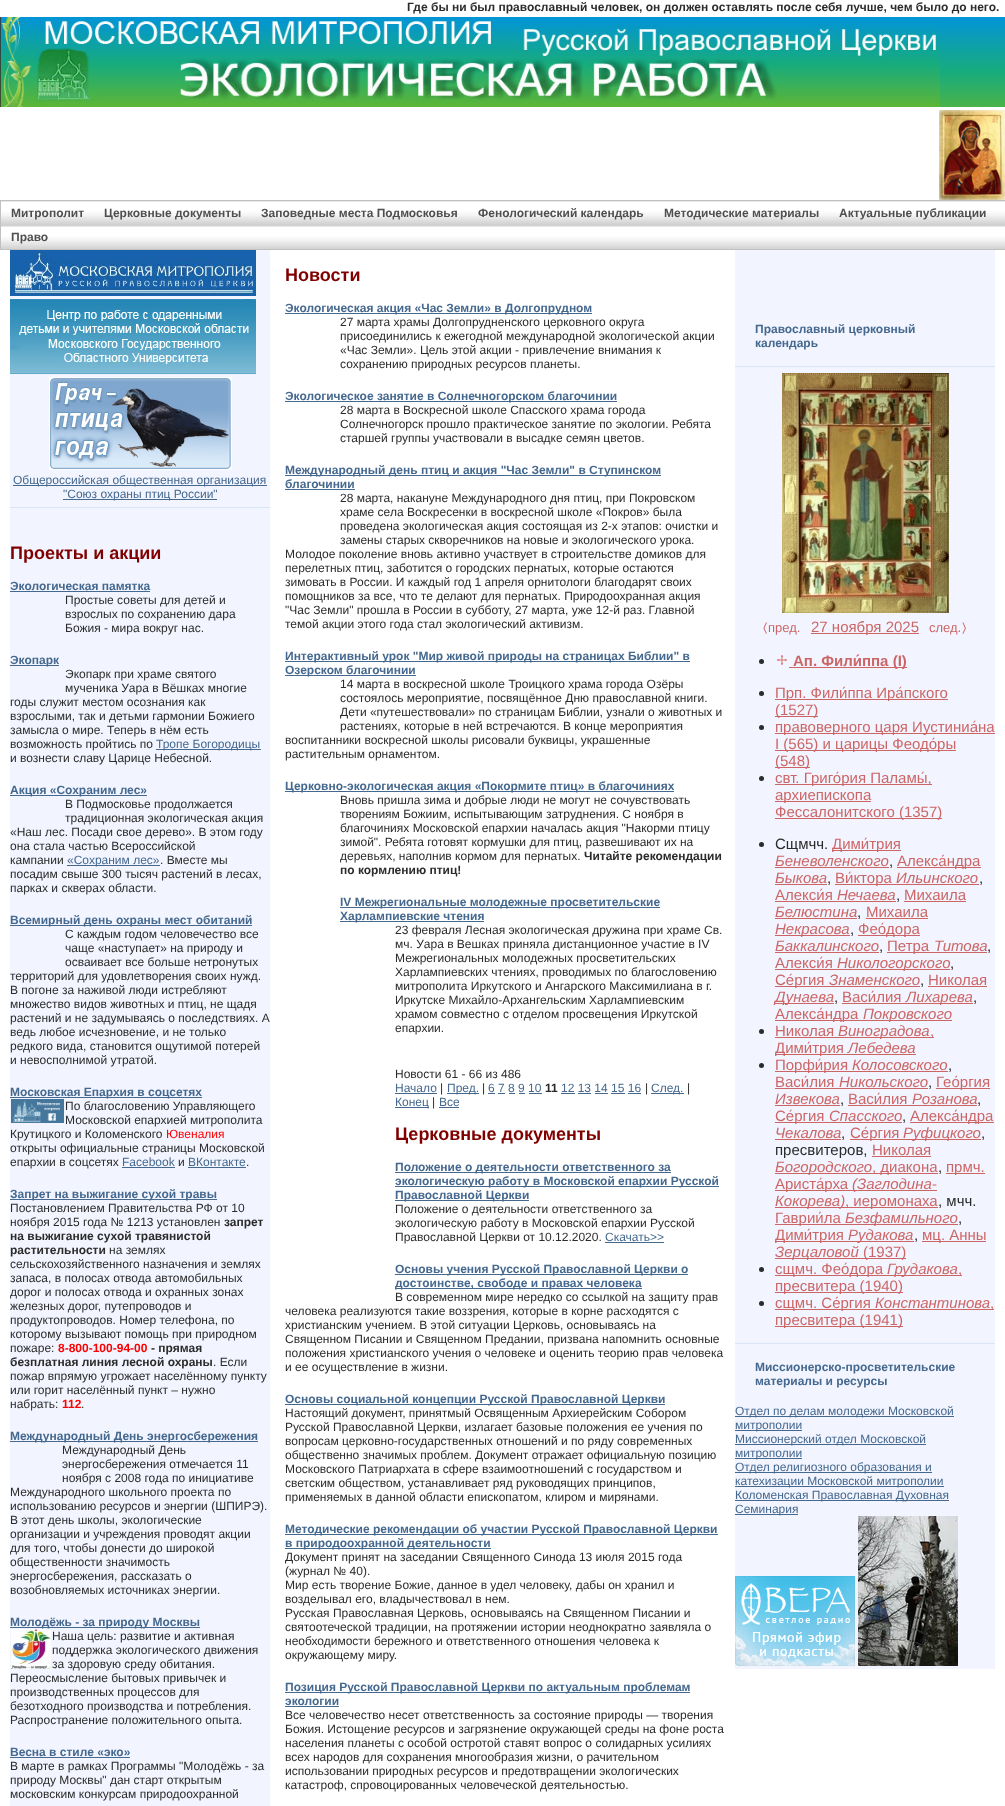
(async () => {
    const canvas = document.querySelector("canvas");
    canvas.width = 1005;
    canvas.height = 1806;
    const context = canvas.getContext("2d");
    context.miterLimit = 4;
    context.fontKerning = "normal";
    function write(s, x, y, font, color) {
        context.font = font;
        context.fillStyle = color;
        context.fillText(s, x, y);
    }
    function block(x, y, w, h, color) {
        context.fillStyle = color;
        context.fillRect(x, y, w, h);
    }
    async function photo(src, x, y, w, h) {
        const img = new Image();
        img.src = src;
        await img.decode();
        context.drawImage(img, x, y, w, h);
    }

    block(0, 0, 1005, 1806, "rgb(255, 255, 255)");
    write("Где бы ни был православный человек, он должен оставлять после себя лучше, чем было до него.", 407, 11, "bold 12px Liberation Sans", "rgb(44, 43, 43)");
    await photo("media/1.png", 940, 17, 65, 90);
    await photo("media/2.png", 0, 17, 940, 90);
    await photo("media/3.png", 939, 110, 66, 90);
    await photo("media/4.png", 1, 201, 1004, 48);
    context.strokeStyle = "rgb(193, 193, 193)";
    context.strokeRect(0.5, 200.5, 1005, 49);
    write("Митрополит", 11, 217, "bold 12px Liberation Sans", "rgb(79, 79, 79)");
    write("Церковные документы", 104, 217, "bold 12px Liberation Sans", "rgb(79, 79, 79)");
    write("Заповедные места Подмосковья", 261, 217, "bold 12px Liberation Sans", "rgb(79, 79, 79)");
    write("Фенологический календарь", 478, 217, "bold 12px Liberation Sans", "rgb(79, 79, 79)");
    write("Методические материалы", 664, 217, "bold 12px Liberation Sans", "rgb(79, 79, 79)");
    write("Актуальные публикации", 839, 217, "bold 12px Liberation Sans", "rgb(79, 79, 79)");
    write("Право", 11, 241, "bold 12px Liberation Sans", "rgb(79, 79, 79)");
    block(10, 250, 260, 1556, "rgb(242, 245, 255)");
    await photo("media/5.png", 10, 250, 246, 46);
    await photo("media/6.png", 10, 299, 246, 75);
    await photo("media/7.png", 49, 377, 183, 93);
    block(13, 485, 254, 1, "rgb(69, 104, 142)");
    write("Общероссийская общественная организация", 13, 484, "12px Liberation Sans", "rgb(69, 104, 142)");
    block(63, 499, 154, 1, "rgb(69, 104, 142)");
    write("\"Cоюз охраны птиц России\"", 63, 498, "12px Liberation Sans", "rgb(69, 104, 142)");
    block(10, 507, 260, 1, "rgb(216, 230, 245)");
    write("Проекты и акции", 10, 559, "bold 18px Liberation Sans", "rgb(128, 0, 0)");
    write("Экологическая памятка", 10, 590, "bold 12px Liberation Sans", "rgb(69, 104, 142)");
    block(10, 591, 140, 1, "rgb(69, 104, 142)");
    write("Простые советы для детей и", 65, 604, "12px Liberation Sans", "rgb(44, 43, 43)");
    write("взрослых по сохранению дара", 65, 618, "12px Liberation Sans", "rgb(44, 43, 43)");
    write("Божия - мира вокруг нас.", 65, 632, "12px Liberation Sans", "rgb(44, 43, 43)");
    block(10, 665, 49, 1, "rgb(69, 104, 142)");
    write("Экопарк", 10, 664, "bold 12px Liberation Sans", "rgb(69, 104, 142)");
    write("Экопарк при храме святого", 65, 678, "12px Liberation Sans", "rgb(44, 43, 43)");
    write("мученика Уара в Вёшках многие", 65, 692, "12px Liberation Sans", "rgb(44, 43, 43)");
    write("годы служит местом осознания как", 10, 706, "12px Liberation Sans", "rgb(44, 43, 43)");
    write("взрослыми, так и детьми гармонии Божиего", 10, 720, "12px Liberation Sans", "rgb(44, 43, 43)");
    write("замысла о мире. Теперь в нём есть", 10, 734, "12px Liberation Sans", "rgb(44, 43, 43)");
    write("возможность пройтись по", 10, 748, "12px Liberation Sans", "rgb(44, 43, 43)");
    block(156, 749, 105, 1, "rgb(69, 104, 142)");
    write("Тропе Богородицы", 156, 748, "12px Liberation Sans", "rgb(69, 104, 142)");
    write("и вознести славу Царице Небесной.", 10, 762, "12px Liberation Sans", "rgb(44, 43, 43)");
    block(10, 795, 137, 1, "rgb(69, 104, 142)");
    write("Акция «Сохраним лес»", 10, 794, "bold 12px Liberation Sans", "rgb(69, 104, 142)");
    write("В Подмосковье продолжается", 65, 808, "12px Liberation Sans", "rgb(44, 43, 43)");
    write("традиционная экологическая акция", 65, 822, "12px Liberation Sans", "rgb(44, 43, 43)");
    write("«Наш лес. Посади свое дерево». В этом году", 10, 836, "12px Liberation Sans", "rgb(44, 43, 43)");
    write("она стала частью Всероссийской", 10, 850, "12px Liberation Sans", "rgb(44, 43, 43)");
    write("кампании", 10, 864, "12px Liberation Sans", "rgb(44, 43, 43)");
    block(67, 865, 93, 1, "rgb(69, 104, 142)");
    write("«Сохраним лес»", 67, 864, "12px Liberation Sans", "rgb(69, 104, 142)");
    write(". Вместе мы", 160, 864, "12px Liberation Sans", "rgb(44, 43, 43)");
    write("посадим свыше 300 тысяч растений в лесах,", 10, 878, "12px Liberation Sans", "rgb(44, 43, 43)");
    write("парках и скверах области.", 10, 892, "12px Liberation Sans", "rgb(44, 43, 43)");
    block(10, 925, 242, 1, "rgb(69, 104, 142)");
    write("Всемирный день охраны мест обитаний", 10, 924, "bold 12px Liberation Sans", "rgb(69, 104, 142)");
    write("С каждым годом человечество все", 65, 938, "12px Liberation Sans", "rgb(44, 43, 43)");
    write("чаще «наступает» на природу и", 65, 952, "12px Liberation Sans", "rgb(44, 43, 43)");
    write("осваивает все больше нетронутых", 65, 966, "12px Liberation Sans", "rgb(44, 43, 43)");
    write("территорий для удовлетворения своих нужд.", 10, 980, "12px Liberation Sans", "rgb(44, 43, 43)");
    write("В погоне за наживой люди истребляют", 10, 994, "12px Liberation Sans", "rgb(44, 43, 43)");
    write("множество видов животных и птиц, не щадя", 10, 1008, "12px Liberation Sans", "rgb(44, 43, 43)");
    write("растений и не задумываясь о последствиях. А", 10, 1022, "12px Liberation Sans", "rgb(44, 43, 43)");
    write("ведь любое исчезновение, и не только", 10, 1036, "12px Liberation Sans", "rgb(44, 43, 43)");
    write("редкого вида, становится ощутимой потерей", 10, 1050, "12px Liberation Sans", "rgb(44, 43, 43)");
    write("и невосполнимой утратой.", 10, 1064, "12px Liberation Sans", "rgb(44, 43, 43)");
    block(10, 1097, 192, 1, "rgb(69, 104, 142)");
    write("Московская Епархия в соцсетях", 10, 1096, "bold 12px Liberation Sans", "rgb(69, 104, 142)");
    await photo("media/8.png", 11, 1099, 53, 24);
    write("По благословению Управляющего", 65, 1110, "12px Liberation Sans", "rgb(44, 43, 43)");
    write("Московской епархией митрополита", 65, 1124, "12px Liberation Sans", "rgb(44, 43, 43)");
    write("Крутицкого и Коломенского", 10, 1138, "12px Liberation Sans", "rgb(44, 43, 43)");
    write("Ювеналия", 166, 1138, "12px Liberation Sans", "rgb(255, 0, 0)");
    write("открыты официальные страницы Московской", 10, 1152, "12px Liberation Sans", "rgb(44, 43, 43)");
    write("епархии в соцсетях", 10, 1166, "12px Liberation Sans", "rgb(44, 43, 43)");
    write("Facebook", 122, 1166, "12px Liberation Sans", "rgb(69, 104, 142)");
    block(122, 1167, 53, 1, "rgb(69, 104, 142)");
    write("и", 178, 1166, "12px Liberation Sans", "rgb(44, 43, 43)");
    write("ВКонтакте", 188, 1166, "12px Liberation Sans", "rgb(69, 104, 142)");
    block(188, 1167, 58, 1, "rgb(69, 104, 142)");
    write(".", 246, 1166, "12px Liberation Sans", "rgb(44, 43, 43)");
    block(10, 1199, 207, 1, "rgb(69, 104, 142)");
    write("Запрет на выжигание сухой травы", 10, 1198, "bold 12px Liberation Sans", "rgb(69, 104, 142)");
    write("Постановлением Правительства РФ от 10", 10, 1212, "12px Liberation Sans", "rgb(44, 43, 43)");
    write("ноября 2015 года № 1213 установлен", 10, 1226, "12px Liberation Sans", "rgb(44, 43, 43)");
    write("запрет", 224, 1226, "bold 12px Liberation Sans", "rgb(44, 43, 43)");
    write("на выжигание сухой травянистой", 10, 1240, "bold 12px Liberation Sans", "rgb(44, 43, 43)");
    write("растительности", 10, 1254, "bold 12px Liberation Sans", "rgb(44, 43, 43)");
    write("на землях", 109, 1254, "12px Liberation Sans", "rgb(44, 43, 43)");
    write("сельскохозяйственного назначения и землях", 10, 1268, "12px Liberation Sans", "rgb(44, 43, 43)");
    write("запаса, в полосах отвода автомобильных", 10, 1282, "12px Liberation Sans", "rgb(44, 43, 43)");
    write("дорог и полосах отвода и охранных зонах", 10, 1296, "12px Liberation Sans", "rgb(44, 43, 43)");
    write("железных дорог, путепроводов и", 10, 1310, "12px Liberation Sans", "rgb(44, 43, 43)");
    write("продуктопроводов. Номер телефона, по", 10, 1324, "12px Liberation Sans", "rgb(44, 43, 43)");
    write("которому вызывают помощь при природном", 10, 1338, "12px Liberation Sans", "rgb(44, 43, 43)");
    write("пожаре:", 10, 1352, "12px Liberation Sans", "rgb(44, 43, 43)");
    write("8-800-100-94-00", 58, 1352, "bold 12px Liberation Sans", "rgb(255, 0, 0)");
    write("- прямая", 151, 1352, "bold 12px Liberation Sans", "rgb(44, 43, 43)");
    write("безплатная линия лесной охраны", 10, 1366, "bold 12px Liberation Sans", "rgb(44, 43, 43)");
    write(". Если", 213, 1366, "12px Liberation Sans", "rgb(44, 43, 43)");
    write("пожар впрямую угрожает населённому пункту", 10, 1380, "12px Liberation Sans", "rgb(44, 43, 43)");
    write("или горит населённый пункт – нужно", 10, 1394, "12px Liberation Sans", "rgb(44, 43, 43)");
    write("набрать:", 10, 1408, "12px Liberation Sans", "rgb(44, 43, 43)");
    write("112", 62, 1408, "bold 12px Liberation Sans", "rgb(255, 0, 0)");
    write(".", 81, 1408, "12px Liberation Sans", "rgb(44, 43, 43)");
    block(10, 1441, 248, 1, "rgb(69, 104, 142)");
    write("Международный День энергосбережения", 10, 1440, "bold 12px Liberation Sans", "rgb(69, 104, 142)");
    write("Международный День", 62, 1454, "12px Liberation Sans", "rgb(44, 43, 43)");
    write("энергосбережения отмечается 11", 62, 1468, "12px Liberation Sans", "rgb(44, 43, 43)");
    write("ноября с 2008 года по инициативе", 62, 1482, "12px Liberation Sans", "rgb(44, 43, 43)");
    write("Международного школьного проекта по", 10, 1496, "12px Liberation Sans", "rgb(44, 43, 43)");
    write("использованию ресурсов и энергии (ШПИРЭ).", 10, 1510, "12px Liberation Sans", "rgb(44, 43, 43)");
    write("В этот день школы, экологические", 10, 1524, "12px Liberation Sans", "rgb(44, 43, 43)");
    write("организации и учреждения проводят акции", 10, 1538, "12px Liberation Sans", "rgb(44, 43, 43)");
    write("для того, чтобы донести до широкой", 10, 1552, "12px Liberation Sans", "rgb(44, 43, 43)");
    write("общественности значимость", 10, 1566, "12px Liberation Sans", "rgb(44, 43, 43)");
    write("энергосбережения, рассказать о", 10, 1580, "12px Liberation Sans", "rgb(44, 43, 43)");
    write("возобновляемых источниках энергии.", 10, 1594, "12px Liberation Sans", "rgb(44, 43, 43)");
    block(10, 1627, 190, 1, "rgb(69, 104, 142)");
    write("Молодёжь - за природу Москвы", 10, 1626, "bold 12px Liberation Sans", "rgb(69, 104, 142)");
    await photo("media/9.png", 11, 1629, 40, 40);
    write("Наша цель: развитие и активная", 52, 1640, "12px Liberation Sans", "rgb(44, 43, 43)");
    write("поддержка экологического движения", 52, 1654, "12px Liberation Sans", "rgb(44, 43, 43)");
    write("за здоровую среду обитания.", 52, 1668, "12px Liberation Sans", "rgb(44, 43, 43)");
    write("Переосмысление бытовых привычек и", 10, 1682, "12px Liberation Sans", "rgb(44, 43, 43)");
    write("производственных процессов для", 10, 1696, "12px Liberation Sans", "rgb(44, 43, 43)");
    write("безотходного производства и потребления.", 10, 1710, "12px Liberation Sans", "rgb(44, 43, 43)");
    write("Распространение положительного опыта.", 10, 1724, "12px Liberation Sans", "rgb(44, 43, 43)");
    write("Весна в стиле «эко»", 10, 1756, "bold 12px Liberation Sans", "rgb(69, 104, 142)");
    block(10, 1757, 120, 1, "rgb(69, 104, 142)");
    write("В марте в рамках Программы \"Молодёжь - за", 10, 1770, "12px Liberation Sans", "rgb(44, 43, 43)");
    write("природу Москвы\" дан старт открытым", 10, 1784, "12px Liberation Sans", "rgb(44, 43, 43)");
    write("московским конкурсам природоохранной", 10, 1798, "12px Liberation Sans", "rgb(44, 43, 43)");
    write("Новости", 285, 281, "bold 18px Liberation Sans", "rgb(128, 0, 0)");
    block(285, 313, 307, 1, "rgb(69, 104, 142)");
    write("Экологическая акция «Час Земли» в Долгопрудном", 285, 312, "bold 12px Liberation Sans", "rgb(69, 104, 142)");
    write("27 марта храмы Долгопрудненского церковного округа", 340, 326, "12px Liberation Sans", "rgb(44, 43, 43)");
    write("присоединились к ежегодной международной экологической акции", 340, 340, "12px Liberation Sans", "rgb(44, 43, 43)");
    write("«Час Земли». Цель этой акции - привлечение внимания к", 340, 354, "12px Liberation Sans", "rgb(44, 43, 43)");
    write("сохранению природных ресурсов планеты.", 340, 368, "12px Liberation Sans", "rgb(44, 43, 43)");
    block(285, 401, 332, 1, "rgb(69, 104, 142)");
    write("Экологическое занятие в Солнечногорском благочинии", 285, 400, "bold 12px Liberation Sans", "rgb(69, 104, 142)");
    write("28 марта в Воскресной школе Спасского храма города", 340, 414, "12px Liberation Sans", "rgb(44, 43, 43)");
    write("Солнечногорск прошло практическое занятие по экологии. Ребята", 340, 428, "12px Liberation Sans", "rgb(44, 43, 43)");
    write("старшей группы участвовали в высадке семян цветов.", 340, 442, "12px Liberation Sans", "rgb(44, 43, 43)");
    block(285, 475, 376, 1, "rgb(69, 104, 142)");
    write("Международный день птиц и акция \"Час Земли\" в Ступинском", 285, 474, "bold 12px Liberation Sans", "rgb(69, 104, 142)");
    write("благочинии", 285, 488, "bold 12px Liberation Sans", "rgb(69, 104, 142)");
    block(285, 489, 70, 1, "rgb(69, 104, 142)");
    write("28 марта, накануне Международного дня птиц, при Покровском", 340, 502, "12px Liberation Sans", "rgb(44, 43, 43)");
    write("храме села Воскресенки в воскресной школе «Покров» была", 340, 516, "12px Liberation Sans", "rgb(44, 43, 43)");
    write("проведена экологическая акция состоящая из 2-х этапов: очистки и", 340, 530, "12px Liberation Sans", "rgb(44, 43, 43)");
    write("замены старых скворечников на новые и экологического урока.", 340, 544, "12px Liberation Sans", "rgb(44, 43, 43)");
    write("Молодое поколение вновь активно участвует в строительстве домиков для", 285, 558, "12px Liberation Sans", "rgb(44, 43, 43)");
    write("перелетных птиц, заботится о городских пернатых, которые остаются", 285, 572, "12px Liberation Sans", "rgb(44, 43, 43)");
    write("зимовать в России. И каждый год 1 апреля орнитологи благодарят своих", 285, 586, "12px Liberation Sans", "rgb(44, 43, 43)");
    write("помощников за все, что те делают для пернатых. Природоохранная акция", 285, 600, "12px Liberation Sans", "rgb(44, 43, 43)");
    write("\"Час Земли\" прошла в России в субботу, 27 марта, уже 12-й раз. Главной", 285, 614, "12px Liberation Sans", "rgb(44, 43, 43)");
    write("темой акции этого года стал экологический активизм.", 285, 628, "12px Liberation Sans", "rgb(44, 43, 43)");
    block(285, 661, 405, 1, "rgb(69, 104, 142)");
    write("Интерактивный урок \"Мир живой природы на страницах Библии\" в", 285, 660, "bold 12px Liberation Sans", "rgb(69, 104, 142)");
    block(285, 675, 131, 1, "rgb(69, 104, 142)");
    write("Озерском благочинии", 285, 674, "bold 12px Liberation Sans", "rgb(69, 104, 142)");
    write("14 марта в воскресной школе Троицкого храма города Озёры", 340, 688, "12px Liberation Sans", "rgb(44, 43, 43)");
    write("состоялось мероприятие, посвящённое Дню православной книги.", 340, 702, "12px Liberation Sans", "rgb(44, 43, 43)");
    write("Дети «путешествовали» по страницам Библии, узнали о животных и", 340, 716, "12px Liberation Sans", "rgb(44, 43, 43)");
    write("растениях, которые в ней встречаются. В конце мероприятия", 340, 730, "12px Liberation Sans", "rgb(44, 43, 43)");
    write("воспитанники воскресной школы рисовали буквицы, украшенные", 285, 744, "12px Liberation Sans", "rgb(44, 43, 43)");
    write("растительным орнаментом.", 285, 758, "12px Liberation Sans", "rgb(44, 43, 43)");
    block(285, 791, 389, 1, "rgb(69, 104, 142)");
    write("Церковно-экологическая акция «Покормите птиц» в благочиниях", 285, 790, "bold 12px Liberation Sans", "rgb(69, 104, 142)");
    write("Вновь пришла зима и добрые люди не могут не сочувствовать", 340, 804, "12px Liberation Sans", "rgb(44, 43, 43)");
    write("творениям Божиим, испытывающим затруднения. С ноября в", 340, 818, "12px Liberation Sans", "rgb(44, 43, 43)");
    write("благочиниях Московской епархии началась акция \"Накорми птицу", 340, 832, "12px Liberation Sans", "rgb(44, 43, 43)");
    write("зимой\". Ребята готовят кормушки для птиц, развешивают их на", 340, 846, "12px Liberation Sans", "rgb(44, 43, 43)");
    write("деревьях, наполнив кормом для пернатых.", 340, 860, "12px Liberation Sans", "rgb(44, 43, 43)");
    write("Читайте рекомендации", 584, 860, "bold 12px Liberation Sans", "rgb(44, 43, 43)");
    write("по кормлению птиц!", 340, 874, "bold 12px Liberation Sans", "rgb(44, 43, 43)");
    block(340, 907, 320, 1, "rgb(69, 104, 142)");
    write("IV Межрегиональные молодежные просветительские", 340, 906, "bold 12px Liberation Sans", "rgb(69, 104, 142)");
    block(340, 921, 144, 1, "rgb(69, 104, 142)");
    write("Харлампиевские чтения", 340, 920, "bold 12px Liberation Sans", "rgb(69, 104, 142)");
    write("23 февраля Лесная экологическая дружина при храме Св.", 395, 934, "12px Liberation Sans", "rgb(44, 43, 43)");
    write("мч. Уара в Вешках приняла дистанционное участие в IV", 395, 948, "12px Liberation Sans", "rgb(44, 43, 43)");
    write("Межрегиональных молодежных просветительских", 395, 962, "12px Liberation Sans", "rgb(44, 43, 43)");
    write("Харлампиевских чтениях, проводимых по благословению", 395, 976, "12px Liberation Sans", "rgb(44, 43, 43)");
    write("митрополита Иркутского и Ангарского Максимилиана в г.", 395, 990, "12px Liberation Sans", "rgb(44, 43, 43)");
    write("Иркутске Михайло-Архангельским Харлампиевским", 395, 1004, "12px Liberation Sans", "rgb(44, 43, 43)");
    write("храмом совместно с отделом просвещения Иркутской", 395, 1018, "12px Liberation Sans", "rgb(44, 43, 43)");
    write("епархии.", 395, 1032, "12px Liberation Sans", "rgb(44, 43, 43)");
    write("Новости 61 - 66 из 486", 395, 1078, "12px Liberation Sans", "rgb(44, 43, 43)");
    write("Начало", 395, 1092, "12px Liberation Sans", "rgb(69, 104, 142)");
    block(395, 1093, 42, 1, "rgb(69, 104, 142)");
    write("|", 440, 1092, "12px Liberation Sans", "rgb(44, 43, 43)");
    block(447, 1093, 32, 1, "rgb(69, 104, 142)");
    write("Пред.", 447, 1092, "12px Liberation Sans", "rgb(69, 104, 142)");
    write("|", 482, 1092, "12px Liberation Sans", "rgb(44, 43, 43)");
    write("6 7 8 9 10", 488, 1092, "12px Liberation Sans", "rgb(69, 104, 142)");
    block(488, 1093, 7, 1, "rgb(69, 104, 142)");
    block(498, 1093, 7, 1, "rgb(69, 104, 142)");
    block(509, 1093, 6, 1, "rgb(69, 104, 142)");
    block(519, 1093, 6, 1, "rgb(69, 104, 142)");
    block(529, 1093, 13, 1, "rgb(69, 104, 142)");
    write("11", 545, 1092, "bold 12px Liberation Sans", "rgb(44, 43, 43)");
    write("12 13 14 15 16", 561, 1092, "12px Liberation Sans", "rgb(69, 104, 142)");
    block(561, 1093, 14, 1, "rgb(69, 104, 142)");
    block(578, 1093, 13, 1, "rgb(69, 104, 142)");
    block(595, 1093, 13, 1, "rgb(69, 104, 142)");
    block(611, 1093, 14, 1, "rgb(69, 104, 142)");
    block(628, 1093, 13, 1, "rgb(69, 104, 142)");
    write("|", 645, 1092, "12px Liberation Sans", "rgb(44, 43, 43)");
    block(651, 1093, 33, 1, "rgb(69, 104, 142)");
    write("След.", 651, 1092, "12px Liberation Sans", "rgb(69, 104, 142)");
    write("|", 687, 1092, "12px Liberation Sans", "rgb(44, 43, 43)");
    block(395, 1107, 34, 1, "rgb(69, 104, 142)");
    write("Конец", 395, 1106, "12px Liberation Sans", "rgb(69, 104, 142)");
    write("|", 432, 1106, "12px Liberation Sans", "rgb(44, 43, 43)");
    write("Все", 439, 1106, "12px Liberation Sans", "rgb(69, 104, 142)");
    block(439, 1107, 20, 1, "rgb(69, 104, 142)");
    write("Церковные документы", 395, 1140, "bold 18px Liberation Sans", "rgb(128, 0, 0)");
    block(395, 1172, 276, 1, "rgb(69, 104, 142)");
    write("Положение о деятельности ответственного за", 395, 1171, "bold 12px Liberation Sans", "rgb(69, 104, 142)");
    block(395, 1186, 324, 1, "rgb(69, 104, 142)");
    write("экологическую работу в Московской епархии Русской", 395, 1185, "bold 12px Liberation Sans", "rgb(69, 104, 142)");
    block(395, 1200, 134, 1, "rgb(69, 104, 142)");
    write("Православной Церкви", 395, 1199, "bold 12px Liberation Sans", "rgb(69, 104, 142)");
    write("Положение о деятельности ответственного за", 395, 1213, "12px Liberation Sans", "rgb(44, 43, 43)");
    write("экологическую работу в Московской епархии Русской", 395, 1227, "12px Liberation Sans", "rgb(44, 43, 43)");
    write("Православной Церкви от 10.12.2020.", 395, 1241, "12px Liberation Sans", "rgb(44, 43, 43)");
    write("Скачать>>", 605, 1241, "12px Liberation Sans", "rgb(69, 104, 142)");
    block(605, 1242, 59, 1, "rgb(69, 104, 142)");
    block(395, 1274, 293, 1, "rgb(69, 104, 142)");
    write("Основы учения Русской Православной Церкви о", 395, 1273, "bold 12px Liberation Sans", "rgb(69, 104, 142)");
    block(395, 1288, 247, 1, "rgb(69, 104, 142)");
    write("достоинстве, свободе и правах человека", 395, 1287, "bold 12px Liberation Sans", "rgb(69, 104, 142)");
    write("В современном мире нередко со ссылкой на защиту прав", 395, 1301, "12px Liberation Sans", "rgb(44, 43, 43)");
    write("человека реализуются такие воззрения, которые в корне расходятся с", 285, 1315, "12px Liberation Sans", "rgb(44, 43, 43)");
    write("христианским учением. В этой ситуации Церковь, основываясь на", 285, 1329, "12px Liberation Sans", "rgb(44, 43, 43)");
    write("Священном Писании и Священном Предании, призвана напомнить основные", 285, 1343, "12px Liberation Sans", "rgb(44, 43, 43)");
    write("положения христианского учения о человеке и оценить теорию прав человека", 285, 1357, "12px Liberation Sans", "rgb(44, 43, 43)");
    write("и ее осуществление в жизни.", 285, 1371, "12px Liberation Sans", "rgb(44, 43, 43)");
    block(285, 1404, 380, 1, "rgb(69, 104, 142)");
    write("Основы социальной концепции Русской Православной Церкви", 285, 1403, "bold 12px Liberation Sans", "rgb(69, 104, 142)");
    write("Настоящий документ, принятмый Освященным Архиерейским Собором", 285, 1417, "12px Liberation Sans", "rgb(44, 43, 43)");
    write("Русской Православной Церкви, излагает базовые положения ее учения по", 285, 1431, "12px Liberation Sans", "rgb(44, 43, 43)");
    write("вопросам церковно-государственных отношений и по ряду современных", 285, 1445, "12px Liberation Sans", "rgb(44, 43, 43)");
    write("общественно значимых проблем. Документ отражает официальную позицию", 285, 1459, "12px Liberation Sans", "rgb(44, 43, 43)");
    write("Московского Патриархата в сфере взаимоотношений с государством и", 285, 1473, "12px Liberation Sans", "rgb(44, 43, 43)");
    write("светским обществом, устанавливает ряд руководящих принципов,", 285, 1487, "12px Liberation Sans", "rgb(44, 43, 43)");
    write("применяемых в данной области епископатом, клиром и мирянами.", 285, 1501, "12px Liberation Sans", "rgb(44, 43, 43)");
    block(285, 1534, 433, 1, "rgb(69, 104, 142)");
    write("Методические рекомендации об участии Русской Православной Церкви", 285, 1533, "bold 12px Liberation Sans", "rgb(69, 104, 142)");
    block(285, 1548, 206, 1, "rgb(69, 104, 142)");
    write("в природоохранной деятельности", 285, 1547, "bold 12px Liberation Sans", "rgb(69, 104, 142)");
    write("Документ принят на заседании Священного Синода 13 июля 2015 года", 285, 1561, "12px Liberation Sans", "rgb(44, 43, 43)");
    write("(журнал № 40).", 285, 1575, "12px Liberation Sans", "rgb(44, 43, 43)");
    write("Мир есть творение Божие, данное в удел человеку, дабы он хранил и", 285, 1589, "12px Liberation Sans", "rgb(44, 43, 43)");
    write("возделывал его, владычествовал в нем.", 285, 1603, "12px Liberation Sans", "rgb(44, 43, 43)");
    write("Русская Православная Церковь, основываясь на Священном Писании и", 285, 1617, "12px Liberation Sans", "rgb(44, 43, 43)");
    write("святоотеческой традиции, на протяжении истории неоднократно заявляла о", 285, 1631, "12px Liberation Sans", "rgb(44, 43, 43)");
    write("необходимости бережного и ответственного отношения человека к", 285, 1645, "12px Liberation Sans", "rgb(44, 43, 43)");
    write("окружающему миру.", 285, 1659, "12px Liberation Sans", "rgb(44, 43, 43)");
    block(285, 1692, 405, 1, "rgb(69, 104, 142)");
    write("Позиция Русской Православной Церкви по актуальным проблемам", 285, 1691, "bold 12px Liberation Sans", "rgb(69, 104, 142)");
    write("экологии", 285, 1705, "bold 12px Liberation Sans", "rgb(69, 104, 142)");
    block(285, 1706, 54, 1, "rgb(69, 104, 142)");
    write("Все человечество несет ответственность за состояние природы — творения", 285, 1719, "12px Liberation Sans", "rgb(44, 43, 43)");
    write("Божия. Истощение ресурсов и загрязнение окружающей среды на фоне роста", 285, 1733, "12px Liberation Sans", "rgb(44, 43, 43)");
    write("населения планеты с особой остротой ставят вопрос о солидарных усилиях", 285, 1747, "12px Liberation Sans", "rgb(44, 43, 43)");
    write("всех народов для сохранения многообразия жизни, о рачительном", 285, 1761, "12px Liberation Sans", "rgb(44, 43, 43)");
    write("использовании природных ресурсов и предотвращении экологических", 285, 1775, "12px Liberation Sans", "rgb(44, 43, 43)");
    write("катастроф, спровоцированных человеческой деятельностью.", 285, 1789, "12px Liberation Sans", "rgb(44, 43, 43)");
    block(735, 250, 260, 1419, "rgb(242, 245, 255)");
    write("Православный церковный", 755, 333, "bold 12px Liberation Sans", "rgb(69, 104, 142)");
    write("календарь", 755, 347, "bold 12px Liberation Sans", "rgb(69, 104, 142)");
    block(735, 366, 260, 1, "rgb(216, 230, 245)");
    await photo("media/10.png", 782, 373, 167, 240);
    write("〈", 763, 632, "13px FreeSans", "rgb(204, 102, 102)");
    write("пред.", 768, 632, "13px Liberation Sans", "rgb(204, 102, 102)");
    block(811, 633, 108, 1, "rgb(204, 102, 102)");
    write("27 ноября 2025", 811, 632, "15px Liberation Sans", "rgb(204, 102, 102)");
    write("след.", 929, 632, "13px Liberation Sans", "rgb(204, 102, 102)");
    write("〉", 962, 632, "13px FreeSans", "rgb(204, 102, 102)");
    context.fillStyle = "rgb(44, 43, 43)";
    context.beginPath();
    context.arc(761.5, 661.5, 2.5, 0, Math.PI * 2);
    context.fill();
    await photo("media/11.png", 777, 655, 10, 10);
    block(789, 667, 118, 1, "rgb(204, 102, 102)");
    write("Ап. Фили́ппа (I)", 793, 666, "bold 15px Liberation Sans", "rgb(204, 102, 102)");
    context.fillStyle = "rgb(44, 43, 43)";
    context.beginPath();
    context.arc(761.5, 693.5, 2.5, 0, Math.PI * 2);
    context.fill();
    block(775, 699, 173, 1, "rgb(204, 102, 102)");
    write("Прп. Фили́ппа Ира́пского", 775, 698, "15px Liberation Sans", "rgb(204, 102, 102)");
    block(775, 716, 43, 1, "rgb(204, 102, 102)");
    write("(1527)", 775, 715, "15px Liberation Sans", "rgb(204, 102, 102)");
    context.fillStyle = "rgb(44, 43, 43)";
    context.beginPath();
    context.arc(761.5, 727.5, 2.5, 0, Math.PI * 2);
    context.fill();
    block(775, 733, 220, 1, "rgb(204, 102, 102)");
    write("правоверного царя Иустиниа́на", 775, 732, "15px Liberation Sans", "rgb(204, 102, 102)");
    block(775, 750, 181, 1, "rgb(204, 102, 102)");
    write("I (565) и царицы Феодо́ры", 775, 749, "15px Liberation Sans", "rgb(204, 102, 102)");
    block(775, 767, 35, 1, "rgb(204, 102, 102)");
    write("(548)", 775, 766, "15px Liberation Sans", "rgb(204, 102, 102)");
    context.fillStyle = "rgb(44, 43, 43)";
    context.beginPath();
    context.arc(761.5, 778.5, 2.5, 0, Math.PI * 2);
    context.fill();
    block(775, 784, 157, 1, "rgb(204, 102, 102)");
    write("свт. Григо́рия Паламы́,", 775, 783, "15px Liberation Sans", "rgb(204, 102, 102)");
    block(775, 801, 96, 1, "rgb(204, 102, 102)");
    write("архиепископа", 775, 800, "15px Liberation Sans", "rgb(204, 102, 102)");
    block(775, 818, 167, 1, "rgb(204, 102, 102)");
    write("Фессалонитского (1357)", 775, 817, "15px Liberation Sans", "rgb(204, 102, 102)");
    context.fillStyle = "rgb(44, 43, 43)";
    context.beginPath();
    context.arc(761.5, 844.5, 2.5, 0, Math.PI * 2);
    context.fill();
    write("Сщмчч.", 775, 849, "15px Liberation Sans", "rgb(44, 43, 43)");
    block(832, 850, 69, 1, "rgb(204, 102, 102)");
    write("Дими́трия", 832, 849, "15px Liberation Sans", "rgb(204, 102, 102)");
    write("Беневоленского", 775, 866, "italic 15px Liberation Sans", "rgb(204, 102, 102)");
    block(775, 867, 114, 1, "rgb(204, 102, 102)");
    write(",", 889, 866, "15px Liberation Sans", "rgb(44, 43, 43)");
    block(897, 867, 84, 1, "rgb(204, 102, 102)");
    write("Алекса́ндра", 897, 866, "15px Liberation Sans", "rgb(204, 102, 102)");
    write("Быкова", 775, 883, "italic 15px Liberation Sans", "rgb(204, 102, 102)");
    block(775, 884, 52, 1, "rgb(204, 102, 102)");
    write(",", 827, 883, "15px Liberation Sans", "rgb(44, 43, 43)");
    block(835, 884, 144, 1, "rgb(204, 102, 102)");
    write("Ви́ктора", 835, 883, "15px Liberation Sans", "rgb(204, 102, 102)");
    write("Ильинского", 896, 883, "italic 15px Liberation Sans", "rgb(204, 102, 102)");
    write(",", 979, 883, "15px Liberation Sans", "rgb(44, 43, 43)");
    write("Алекси́я", 775, 900, "15px Liberation Sans", "rgb(204, 102, 102)");
    block(775, 901, 121, 1, "rgb(204, 102, 102)");
    write("Нечаева", 837, 900, "italic 15px Liberation Sans", "rgb(204, 102, 102)");
    write(",", 896, 900, "15px Liberation Sans", "rgb(44, 43, 43)");
    write("Михаила", 904, 900, "15px Liberation Sans", "rgb(204, 102, 102)");
    block(904, 901, 62, 1, "rgb(204, 102, 102)");
    write("Белюстина", 775, 917, "italic 15px Liberation Sans", "rgb(204, 102, 102)");
    block(775, 918, 82, 1, "rgb(204, 102, 102)");
    write(",", 857, 917, "15px Liberation Sans", "rgb(44, 43, 43)");
    write("Михаила", 866, 917, "15px Liberation Sans", "rgb(204, 102, 102)");
    block(866, 918, 62, 1, "rgb(204, 102, 102)");
    block(775, 935, 75, 1, "rgb(204, 102, 102)");
    write("Некрасова", 775, 934, "italic 15px Liberation Sans", "rgb(204, 102, 102)");
    write(",", 850, 934, "15px Liberation Sans", "rgb(44, 43, 43)");
    block(858, 935, 62, 1, "rgb(204, 102, 102)");
    write("Фео́дора", 858, 934, "15px Liberation Sans", "rgb(204, 102, 102)");
    write("Баккалинского", 775, 951, "italic 15px Liberation Sans", "rgb(204, 102, 102)");
    block(775, 952, 104, 1, "rgb(204, 102, 102)");
    write(",", 879, 951, "15px Liberation Sans", "rgb(44, 43, 43)");
    block(887, 952, 100, 1, "rgb(204, 102, 102)");
    write("Петра", 887, 951, "15px Liberation Sans", "rgb(204, 102, 102)");
    write("Титова", 934, 951, "italic 15px Liberation Sans", "rgb(204, 102, 102)");
    write(",", 987, 951, "15px Liberation Sans", "rgb(44, 43, 43)");
    write("Алекси́я", 775, 968, "15px Liberation Sans", "rgb(204, 102, 102)");
    block(775, 969, 175, 1, "rgb(204, 102, 102)");
    write("Никологорского", 837, 968, "italic 15px Liberation Sans", "rgb(204, 102, 102)");
    write(",", 950, 968, "15px Liberation Sans", "rgb(44, 43, 43)");
    block(775, 986, 145, 1, "rgb(204, 102, 102)");
    write("Се́ргия", 775, 985, "15px Liberation Sans", "rgb(204, 102, 102)");
    write("Знаменского", 829, 985, "italic 15px Liberation Sans", "rgb(204, 102, 102)");
    write(",", 920, 985, "15px Liberation Sans", "rgb(44, 43, 43)");
    write("Николая", 928, 985, "15px Liberation Sans", "rgb(204, 102, 102)");
    block(928, 986, 59, 1, "rgb(204, 102, 102)");
    block(775, 1003, 59, 1, "rgb(204, 102, 102)");
    write("Дунаева", 775, 1002, "italic 15px Liberation Sans", "rgb(204, 102, 102)");
    write(",", 834, 1002, "15px Liberation Sans", "rgb(44, 43, 43)");
    write("Васи́лия", 842, 1002, "15px Liberation Sans", "rgb(204, 102, 102)");
    block(842, 1003, 131, 1, "rgb(204, 102, 102)");
    write("Лихарева", 906, 1002, "italic 15px Liberation Sans", "rgb(204, 102, 102)");
    write(",", 973, 1002, "15px Liberation Sans", "rgb(44, 43, 43)");
    block(775, 1020, 177, 1, "rgb(204, 102, 102)");
    write("Алекса́ндра", 775, 1019, "15px Liberation Sans", "rgb(204, 102, 102)");
    write("Покровского", 863, 1019, "italic 15px Liberation Sans", "rgb(204, 102, 102)");
    context.fillStyle = "rgb(44, 43, 43)";
    context.beginPath();
    context.arc(761.5, 1031.5, 2.5, 0, Math.PI * 2);
    context.fill();
    write("Николая", 775, 1036, "15px Liberation Sans", "rgb(204, 102, 102)");
    block(775, 1037, 159, 1, "rgb(204, 102, 102)");
    write("Виноградова", 838, 1036, "italic 15px Liberation Sans", "rgb(204, 102, 102)");
    write(",", 930, 1036, "15px Liberation Sans", "rgb(204, 102, 102)");
    block(775, 1054, 141, 1, "rgb(204, 102, 102)");
    write("Дими́трия", 775, 1053, "15px Liberation Sans", "rgb(204, 102, 102)");
    write("Лебедева", 848, 1053, "italic 15px Liberation Sans", "rgb(204, 102, 102)");
    context.fillStyle = "rgb(44, 43, 43)";
    context.beginPath();
    context.arc(761.5, 1065.5, 2.5, 0, Math.PI * 2);
    context.fill();
    block(775, 1071, 173, 1, "rgb(204, 102, 102)");
    write("Порфи́рия", 775, 1070, "15px Liberation Sans", "rgb(204, 102, 102)");
    write("Колосовского", 852, 1070, "italic 15px Liberation Sans", "rgb(204, 102, 102)");
    write(",", 948, 1070, "15px Liberation Sans", "rgb(44, 43, 43)");
    write("Васи́лия", 775, 1087, "15px Liberation Sans", "rgb(204, 102, 102)");
    block(775, 1088, 153, 1, "rgb(204, 102, 102)");
    write("Никольского", 839, 1087, "italic 15px Liberation Sans", "rgb(204, 102, 102)");
    write(",", 928, 1087, "15px Liberation Sans", "rgb(44, 43, 43)");
    block(936, 1088, 54, 1, "rgb(204, 102, 102)");
    write("Гео́ргия", 936, 1087, "15px Liberation Sans", "rgb(204, 102, 102)");
    write("Извекова", 775, 1104, "italic 15px Liberation Sans", "rgb(204, 102, 102)");
    block(775, 1105, 65, 1, "rgb(204, 102, 102)");
    write(",", 840, 1104, "15px Liberation Sans", "rgb(44, 43, 43)");
    write("Васи́лия", 848, 1104, "15px Liberation Sans", "rgb(204, 102, 102)");
    block(848, 1105, 129, 1, "rgb(204, 102, 102)");
    write("Розанова", 912, 1104, "italic 15px Liberation Sans", "rgb(204, 102, 102)");
    write(",", 977, 1104, "15px Liberation Sans", "rgb(44, 43, 43)");
    block(775, 1122, 127, 1, "rgb(204, 102, 102)");
    write("Се́ргия", 775, 1121, "15px Liberation Sans", "rgb(204, 102, 102)");
    write("Спасского", 829, 1121, "italic 15px Liberation Sans", "rgb(204, 102, 102)");
    write(",", 902, 1121, "15px Liberation Sans", "rgb(44, 43, 43)");
    block(910, 1122, 84, 1, "rgb(204, 102, 102)");
    write("Алекса́ндра", 910, 1121, "15px Liberation Sans", "rgb(204, 102, 102)");
    write("Чекалова", 775, 1138, "italic 15px Liberation Sans", "rgb(204, 102, 102)");
    block(775, 1139, 66, 1, "rgb(204, 102, 102)");
    write(",", 841, 1138, "15px Liberation Sans", "rgb(44, 43, 43)");
    block(850, 1139, 131, 1, "rgb(204, 102, 102)");
    write("Се́ргия", 850, 1138, "15px Liberation Sans", "rgb(204, 102, 102)");
    write("Руфицкого", 903, 1138, "italic 15px Liberation Sans", "rgb(204, 102, 102)");
    write(",", 981, 1138, "15px Liberation Sans", "rgb(44, 43, 43)");
    write("пресвитеров,", 775, 1155, "15px Liberation Sans", "rgb(44, 43, 43)");
    write("Николая", 872, 1155, "15px Liberation Sans", "rgb(204, 102, 102)");
    block(872, 1156, 59, 1, "rgb(204, 102, 102)");
    block(775, 1173, 163, 1, "rgb(204, 102, 102)");
    write("Богородского", 775, 1172, "italic 15px Liberation Sans", "rgb(204, 102, 102)");
    write(", диакона", 872, 1172, "15px Liberation Sans", "rgb(204, 102, 102)");
    write(",", 938, 1172, "15px Liberation Sans", "rgb(44, 43, 43)");
    block(946, 1173, 39, 1, "rgb(204, 102, 102)");
    write("прмч.", 946, 1172, "15px Liberation Sans", "rgb(204, 102, 102)");
    block(775, 1190, 162, 1, "rgb(204, 102, 102)");
    write("Ариста́рха", 775, 1189, "15px Liberation Sans", "rgb(204, 102, 102)");
    write("(Заглодина-", 852, 1189, "italic 15px Liberation Sans", "rgb(204, 102, 102)");
    block(775, 1207, 163, 1, "rgb(204, 102, 102)");
    write("Кокорева)", 775, 1206, "italic 15px Liberation Sans", "rgb(204, 102, 102)");
    write(", иеромонаха", 845, 1206, "15px Liberation Sans", "rgb(204, 102, 102)");
    write(", мчч.", 938, 1206, "15px Liberation Sans", "rgb(44, 43, 43)");
    block(775, 1224, 183, 1, "rgb(204, 102, 102)");
    write("Гаврии́ла", 775, 1223, "15px Liberation Sans", "rgb(204, 102, 102)");
    write("Безфамильного", 845, 1223, "italic 15px Liberation Sans", "rgb(204, 102, 102)");
    write(",", 958, 1223, "15px Liberation Sans", "rgb(44, 43, 43)");
    block(775, 1241, 139, 1, "rgb(204, 102, 102)");
    write("Дими́трия", 775, 1240, "15px Liberation Sans", "rgb(204, 102, 102)");
    write("Рудакова", 848, 1240, "italic 15px Liberation Sans", "rgb(204, 102, 102)");
    write(",", 914, 1240, "15px Liberation Sans", "rgb(44, 43, 43)");
    block(922, 1241, 64, 1, "rgb(204, 102, 102)");
    write("мц. Анны", 922, 1240, "15px Liberation Sans", "rgb(204, 102, 102)");
    block(775, 1258, 131, 1, "rgb(204, 102, 102)");
    write("Зерцаловой", 775, 1257, "italic 15px Liberation Sans", "rgb(204, 102, 102)");
    write("(1937)", 863, 1257, "15px Liberation Sans", "rgb(204, 102, 102)");
    context.fillStyle = "rgb(44, 43, 43)";
    context.beginPath();
    context.arc(761.5, 1269.5, 2.5, 0, Math.PI * 2);
    context.fill();
    block(775, 1275, 187, 1, "rgb(204, 102, 102)");
    write("сщмч. Фео́дора", 775, 1274, "15px Liberation Sans", "rgb(204, 102, 102)");
    write("Грудакова", 887, 1274, "italic 15px Liberation Sans", "rgb(204, 102, 102)");
    write(",", 958, 1274, "15px Liberation Sans", "rgb(204, 102, 102)");
    block(775, 1292, 128, 1, "rgb(204, 102, 102)");
    write("пресвитера (1940)", 775, 1291, "15px Liberation Sans", "rgb(204, 102, 102)");
    context.fillStyle = "rgb(44, 43, 43)";
    context.beginPath();
    context.arc(761.5, 1303.5, 2.5, 0, Math.PI * 2);
    context.fill();
    block(775, 1309, 219, 1, "rgb(204, 102, 102)");
    write("сщмч. Се́ргия", 775, 1308, "15px Liberation Sans", "rgb(204, 102, 102)");
    write("Константинова", 875, 1308, "italic 15px Liberation Sans", "rgb(204, 102, 102)");
    write(",", 990, 1308, "15px Liberation Sans", "rgb(204, 102, 102)");
    block(775, 1326, 128, 1, "rgb(204, 102, 102)");
    write("пресвитера (1941)", 775, 1325, "15px Liberation Sans", "rgb(204, 102, 102)");
    block(735, 1343, 260, 1, "rgb(216, 230, 245)");
    write("Миссионерско-просветительские", 755, 1371, "bold 12px Liberation Sans", "rgb(69, 104, 142)");
    write("материалы и ресурсы", 755, 1385, "bold 12px Liberation Sans", "rgb(69, 104, 142)");
    block(735, 1416, 219, 1, "rgb(69, 104, 142)");
    write("Отдел по делам молодежи Московской", 735, 1415, "12px Liberation Sans", "rgb(69, 104, 142)");
    block(735, 1430, 67, 1, "rgb(69, 104, 142)");
    write("митрополии", 735, 1429, "12px Liberation Sans", "rgb(69, 104, 142)");
    block(735, 1444, 191, 1, "rgb(69, 104, 142)");
    write("Миссионерский отдел Московской", 735, 1443, "12px Liberation Sans", "rgb(69, 104, 142)");
    block(735, 1458, 67, 1, "rgb(69, 104, 142)");
    write("митрополии", 735, 1457, "12px Liberation Sans", "rgb(69, 104, 142)");
    block(735, 1472, 197, 1, "rgb(69, 104, 142)");
    write("Отдел религиозного образования и", 735, 1471, "12px Liberation Sans", "rgb(69, 104, 142)");
    block(735, 1486, 209, 1, "rgb(69, 104, 142)");
    write("катехизации Московской митрополии", 735, 1485, "12px Liberation Sans", "rgb(69, 104, 142)");
    block(735, 1500, 214, 1, "rgb(69, 104, 142)");
    write("Коломенская Православная Духовная", 735, 1499, "12px Liberation Sans", "rgb(69, 104, 142)");
    block(735, 1514, 63, 1, "rgb(69, 104, 142)");
    write("Семинария", 735, 1513, "12px Liberation Sans", "rgb(69, 104, 142)");
    await photo("media/12.png", 735, 1576, 120, 90);
    await photo("media/13.png", 858, 1516, 100, 150);
})();
